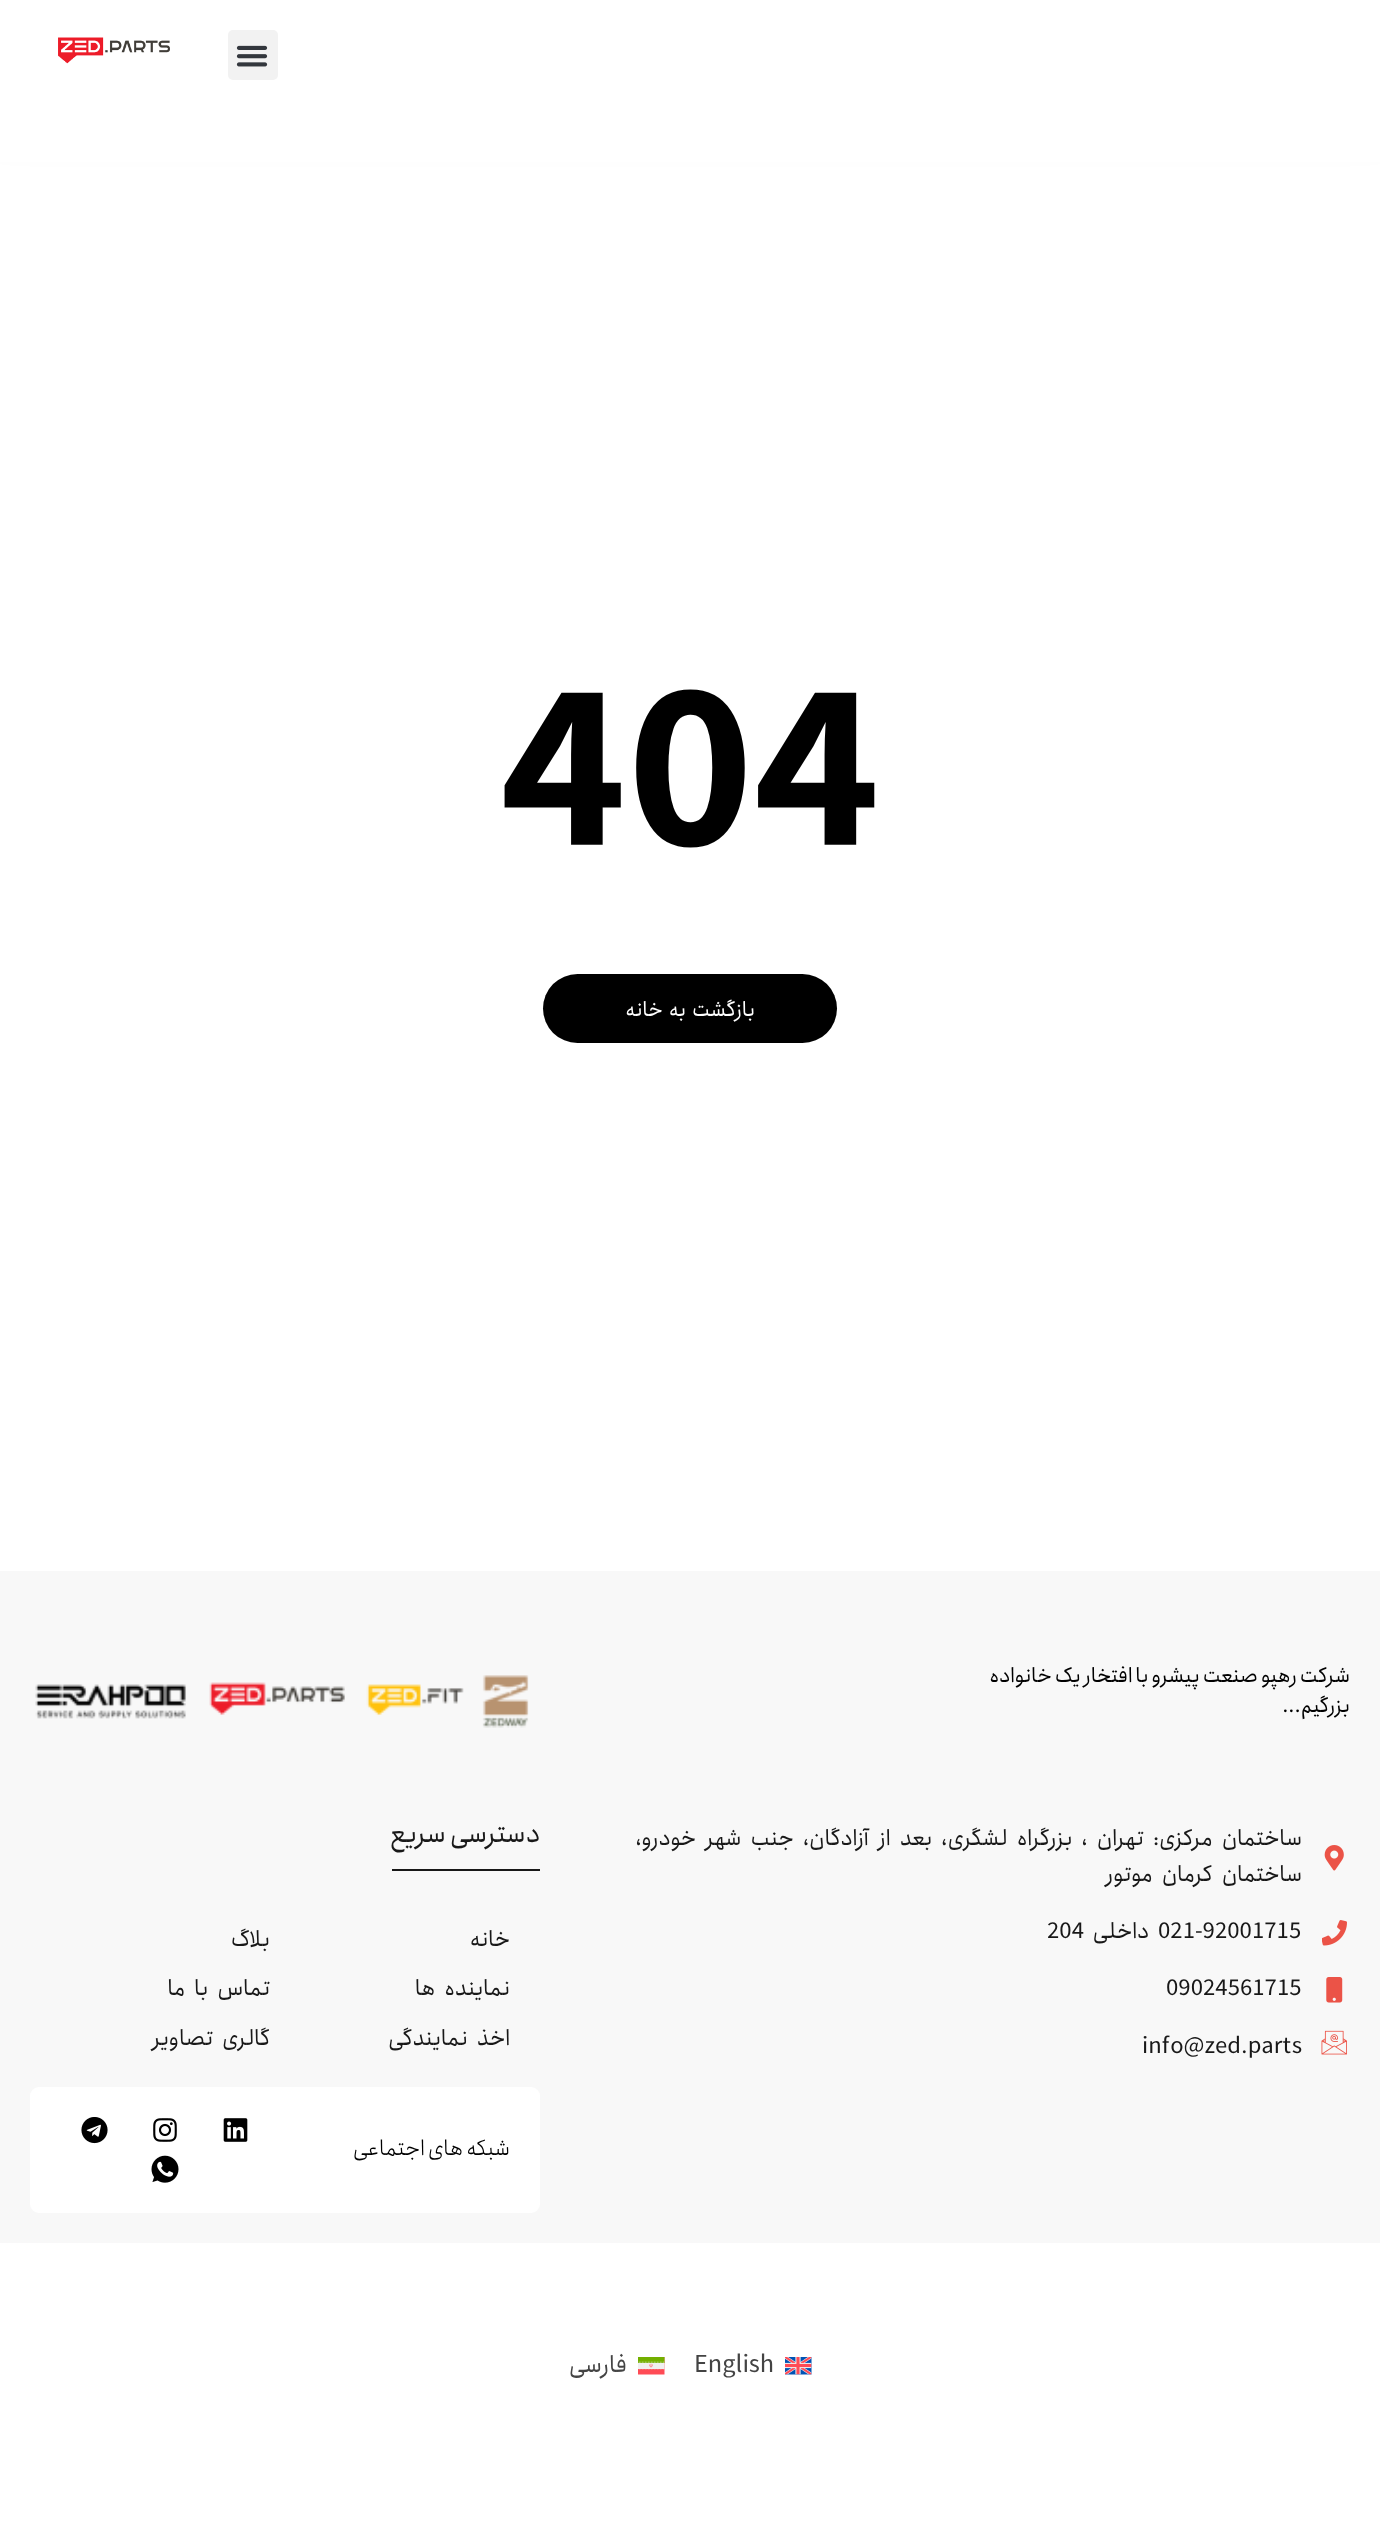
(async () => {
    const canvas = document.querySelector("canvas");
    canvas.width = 1380;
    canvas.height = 2537;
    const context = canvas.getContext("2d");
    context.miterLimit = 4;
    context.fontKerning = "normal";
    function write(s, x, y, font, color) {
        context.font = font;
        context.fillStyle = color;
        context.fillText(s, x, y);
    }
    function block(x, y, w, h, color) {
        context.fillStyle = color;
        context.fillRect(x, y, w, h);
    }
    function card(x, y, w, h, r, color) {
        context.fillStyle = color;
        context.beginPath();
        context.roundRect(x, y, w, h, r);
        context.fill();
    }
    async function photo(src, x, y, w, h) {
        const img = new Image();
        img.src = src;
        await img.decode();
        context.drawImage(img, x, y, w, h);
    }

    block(0, 0, 1380, 2537, "rgb(255, 255, 255)");
    context.save();
    context.beginPath();
    context.moveTo(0, 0);
    context.lineTo(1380, 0);
    context.lineTo(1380, 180);
    context.lineTo(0, 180);
    context.closePath();
    context.moveTo(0, 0);
    context.lineTo(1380, 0);
    context.lineTo(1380, 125);
    context.lineTo(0, 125);
    context.closePath();
    context.clip("evenodd");
    context.fillStyle = "rgba(0, 0, 0, 0.5)";
    context.filter = "blur(18px)";
    context.beginPath();
    context.rect(0, 0, 1380, 125);
    context.fill();
    context.filter = "none";
    context.restore();
    card(228, 30, 50, 50, 5, "rgb(242, 242, 242)");
    await photo("media/1.png", 236, 45, 32, 22);
    await photo("media/2.png", 58, 37, 112, 27);
    block(0, 125, 1380, 37, "rgb(255, 255, 255)");
    write("404", 500, 845, "bold 218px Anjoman", "rgb(0, 0, 0)");
    card(543, 974, 294, 69, 34.5, "rgb(0, 0, 0)");
    context.wordSpacing = "3px";
    context.direction = "rtl";
    write("بازگشت به خانه", 755, 1016, "21px Anjoman", "rgb(255, 255, 255)");
    block(0, 1571, 1380, 672, "rgb(248, 248, 248)");
    context.wordSpacing = "0px";
    write("شرکت رهپو صنعت پیشرو با افتخار یک خانواده", 1350, 1682, "21px Anjoman", "rgb(0, 0, 0)");
    write("بزرگیم...", 1350, 1712, "21px Anjoman", "rgb(0, 0, 0)");
    await photo("media/3.png", 35, 1675, 494, 53);
    await photo("media/4.png", 1324, 1845, 20, 26);
    context.wordSpacing = "6px";
    write("ساختمان مرکزی: تهران ، بزرگراه لشگری، بعد از آزادگان، جنب شهر خودرو،", 1302, 1845, "22.5px Anjoman", "rgb(24, 24, 24)");
    write("ساختمان کرمان موتور", 1302, 1881, "22.5px Anjoman", "rgb(24, 24, 24)");
    await photo("media/5.png", 1322, 1920, 25, 26);
    context.wordSpacing = "0px";
    context.direction = "ltr";
    write("021-92001715", 1158, 1938, "22.5px Anjoman", "rgb(24, 24, 24)");
    context.direction = "rtl";
    write("داخلی", 1149, 1938, "22.5px Anjoman", "rgb(24, 24, 24)");
    context.direction = "ltr";
    write("204", 1047, 1938, "22.5px Anjoman", "rgb(24, 24, 24)");
    await photo("media/6.png", 1326, 1977, 17, 26);
    write("09024561715", 1166, 1995, "22.5px Anjoman", "rgb(24, 24, 24)");
    await photo("media/7.png", 1321, 2030, 26, 25);
    write("info@zed.parts", 1142, 2053, "22.5px Anjoman", "rgb(24, 24, 24)");
    context.direction = "rtl";
    write("دسترسی سریع", 540, 1842, "27px Anjoman", "rgb(24, 24, 24)");
    block(392, 1869, 148, 2, "rgb(24, 24, 24)");
    write("خانه", 510, 1946, "22.5px Anjoman", "rgb(24, 24, 24)");
    context.wordSpacing = "6px";
    write("نماینده ها", 510, 1995, "22.5px Anjoman", "rgb(24, 24, 24)");
    write("اخذ نمایندگی", 510, 2045, "22.5px Anjoman", "rgb(24, 24, 24)");
    context.wordSpacing = "0px";
    write("بلاگ", 270, 1946, "22.5px Anjoman", "rgb(24, 24, 24)");
    context.wordSpacing = "6px";
    write("تماس با ما", 270, 1995, "22.5px Anjoman", "rgb(24, 24, 24)");
    write("گالری تصاویر", 270, 2045, "22.5px Anjoman", "rgb(24, 24, 24)");
    card(30, 2087, 510, 126, 9, "rgb(255, 255, 255)");
    context.wordSpacing = "0px";
    write("شبکه های اجتماعی", 510, 2155, "300 22.5px Anjoman", "rgb(0, 0, 0)");
    await photo("media/8.png", 223, 2118, 25, 24);
    await photo("media/9.png", 153, 2118, 24, 24);
    await photo("media/10.png", 81, 2117, 27, 27);
    await photo("media/11.png", 151, 2155, 28, 28);
    await photo("media/12.png", 785, 2357, 27, 18);
    context.direction = "ltr";
    write("English", 694, 2372, "24px Anjoman", "rgb(68, 68, 68)");
    await photo("media/13.png", 638, 2357, 27, 18);
    context.direction = "rtl";
    write("فارسی", 627, 2372, "24px Anjoman", "rgb(68, 68, 68)");
})();
